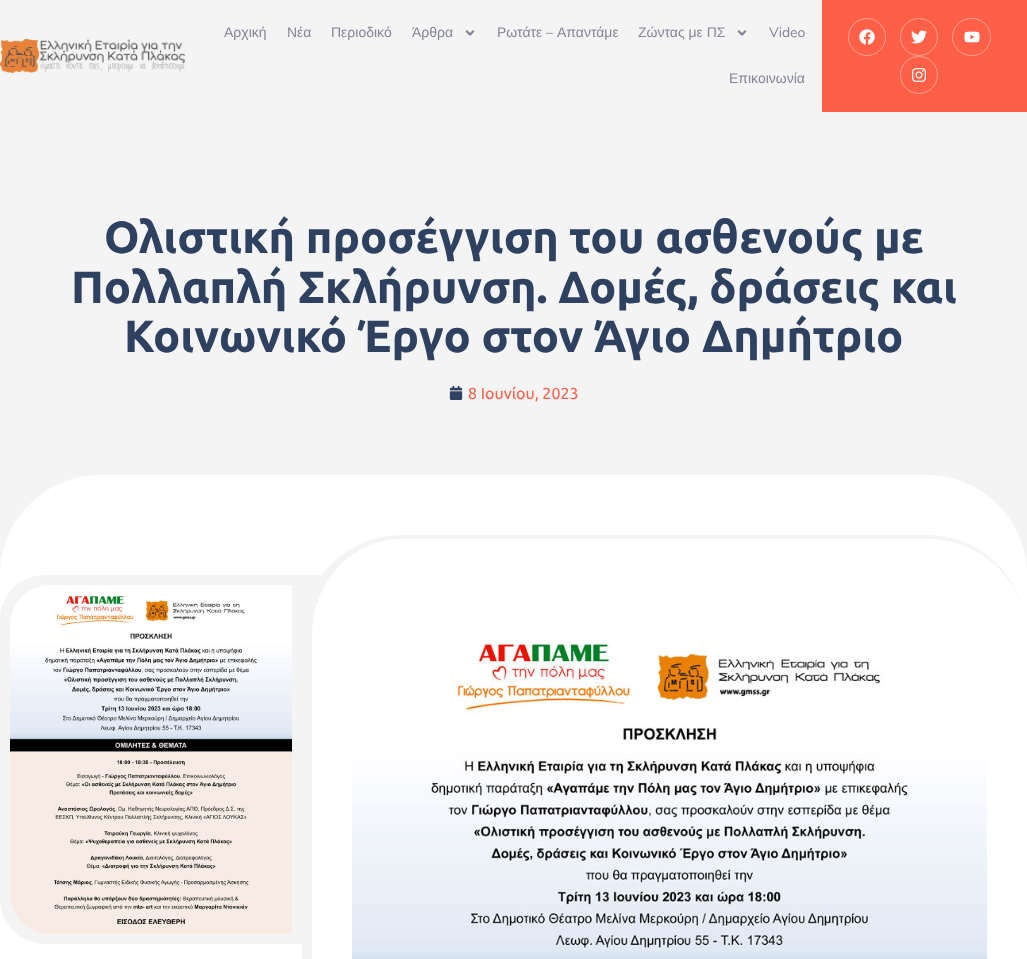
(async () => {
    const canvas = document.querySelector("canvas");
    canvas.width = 1027;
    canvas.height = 959;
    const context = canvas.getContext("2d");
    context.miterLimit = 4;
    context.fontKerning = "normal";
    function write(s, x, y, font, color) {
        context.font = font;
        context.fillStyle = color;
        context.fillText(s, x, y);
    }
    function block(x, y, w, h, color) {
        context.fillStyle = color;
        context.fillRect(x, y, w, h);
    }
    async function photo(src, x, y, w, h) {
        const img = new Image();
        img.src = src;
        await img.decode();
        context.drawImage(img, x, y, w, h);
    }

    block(0, 0, 1027, 959, "rgb(244, 244, 244)");
    await photo("media/1.png", 0, 39, 185, 34);
    write("Αρχική", 224, 37, "14px Liberation Sans", "rgb(131, 134, 148)");
    write("Νέα", 287, 37, "14px Liberation Sans", "rgb(131, 134, 148)");
    write("Περιοδικό", 331, 37, "14px Liberation Sans", "rgb(131, 134, 148)");
    write("Άρθρα", 412, 37, "14px Liberation Sans", "rgb(131, 134, 148)");
    await photo("media/2.png", 465, 30, 10, 6);
    write("Ρωτάτε", 497, 37, "14px Liberation Sans", "rgb(131, 134, 148)");
    write("–", 546, 37, "14px Nunito Sans", "rgb(131, 134, 148)");
    write("Απαντάμε", 557, 37, "14px Liberation Sans", "rgb(131, 134, 148)");
    write("Ζώντας με ΠΣ", 638, 37, "14px Liberation Sans", "rgb(131, 134, 148)");
    await photo("media/2.png", 737, 30, 10, 6);
    write("Video", 769, 37, "14px Nunito Sans", "rgb(131, 134, 148)");
    write("Επικοινωνία", 729, 83, "14px Liberation Sans", "rgb(131, 134, 148)");
    block(822, 0, 205, 112, "rgb(253, 96, 71)");
    context.beginPath();
    context.arc(867, 37, 18.5, 0, Math.PI * 2);
    context.strokeStyle = "rgb(254, 160, 145)";
    context.stroke();
    await photo("media/3.png", 859, 29, 16, 16);
    context.beginPath();
    context.arc(919, 37, 18.5, 0, Math.PI * 2);
    context.stroke();
    await photo("media/4.png", 911, 30, 16, 14);
    context.beginPath();
    context.roundRect(952.5, 18.5, 38, 37, 18.5);
    context.stroke();
    await photo("media/5.png", 964, 31, 16, 12);
    context.beginPath();
    context.arc(919, 75, 18.5, 0, Math.PI * 2);
    context.stroke();
    await photo("media/6.png", 912, 68, 14, 14);
    write("Ολιστική προσέγγιση του ασθενούς με", 104, 253, "bold 45px Ubuntu", "rgb(47, 65, 96)");
    write("Πολλαπλή Σκλήρυνση. Δομές, δράσεις και", 71, 303, "bold 45px Ubuntu", "rgb(47, 65, 96)");
    write("Κοινωνικό Έργο στον Άγιο Δημήτριο", 124, 352, "bold 45px Ubuntu", "rgb(47, 65, 96)");
    await photo("media/7.png", 449, 386, 14, 14);
    write("8 Ιουνίου, 2023", 468, 399, "16px Ubuntu", "rgb(253, 96, 71)");
    context.fillStyle = "rgb(255, 255, 255)";
    context.beginPath();
    context.moveTo(100, 475);
    context.lineTo(927, 475);
    context.bezierCurveTo(982, 475, 1027, 520, 1027, 575);
    context.lineTo(1027, 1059);
    context.lineTo(0, 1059);
    context.lineTo(0, 575);
    context.bezierCurveTo(0, 520, 45, 475, 100, 475);
    context.closePath();
    context.fill();
    context.fillStyle = "rgb(244, 244, 244)";
    context.beginPath();
    context.roundRect(0, 575, 342, 369, [45, 0, 0, 45]);
    context.fill();
    await photo("media/8.png", 10, 585, 282, 349);
    context.fillStyle = "rgb(255, 255, 255)";
    context.beginPath();
    context.moveTo(402, 539);
    context.lineTo(927, 539);
    context.bezierCurveTo(982, 539, 1027, 582, 1027, 635);
    context.lineTo(1027, 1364);
    context.bezierCurveTo(1027, 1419, 982, 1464, 927, 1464);
    context.lineTo(402, 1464);
    context.bezierCurveTo(352, 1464, 312, 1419, 312, 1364);
    context.lineTo(312, 635);
    context.bezierCurveTo(312, 582, 352, 539, 402, 539);
    context.closePath();
    context.fill();
    context.fillStyle = "rgb(244, 244, 244)";
    context.beginPath();
    context.moveTo(402, 535);
    context.lineTo(927, 535);
    context.bezierCurveTo(982, 535, 1027, 580, 1027, 635);
    context.lineTo(1027, 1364);
    context.bezierCurveTo(1027, 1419, 982, 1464, 927, 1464);
    context.lineTo(402, 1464);
    context.bezierCurveTo(347, 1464, 302, 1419, 302, 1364);
    context.lineTo(302, 635);
    context.bezierCurveTo(302, 580, 347, 535, 402, 535);
    context.closePath();
    context.moveTo(402, 539);
    context.lineTo(927, 539);
    context.bezierCurveTo(982, 539, 1027, 582, 1027, 635);
    context.lineTo(1027, 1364);
    context.bezierCurveTo(1027, 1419, 982, 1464, 927, 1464);
    context.lineTo(402, 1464);
    context.bezierCurveTo(352, 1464, 312, 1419, 312, 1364);
    context.lineTo(312, 635);
    context.bezierCurveTo(312, 582, 352, 539, 402, 539);
    context.closePath();
    context.fill("evenodd");
    await photo("media/9.png", 352, 644, 635, 315);
})();
